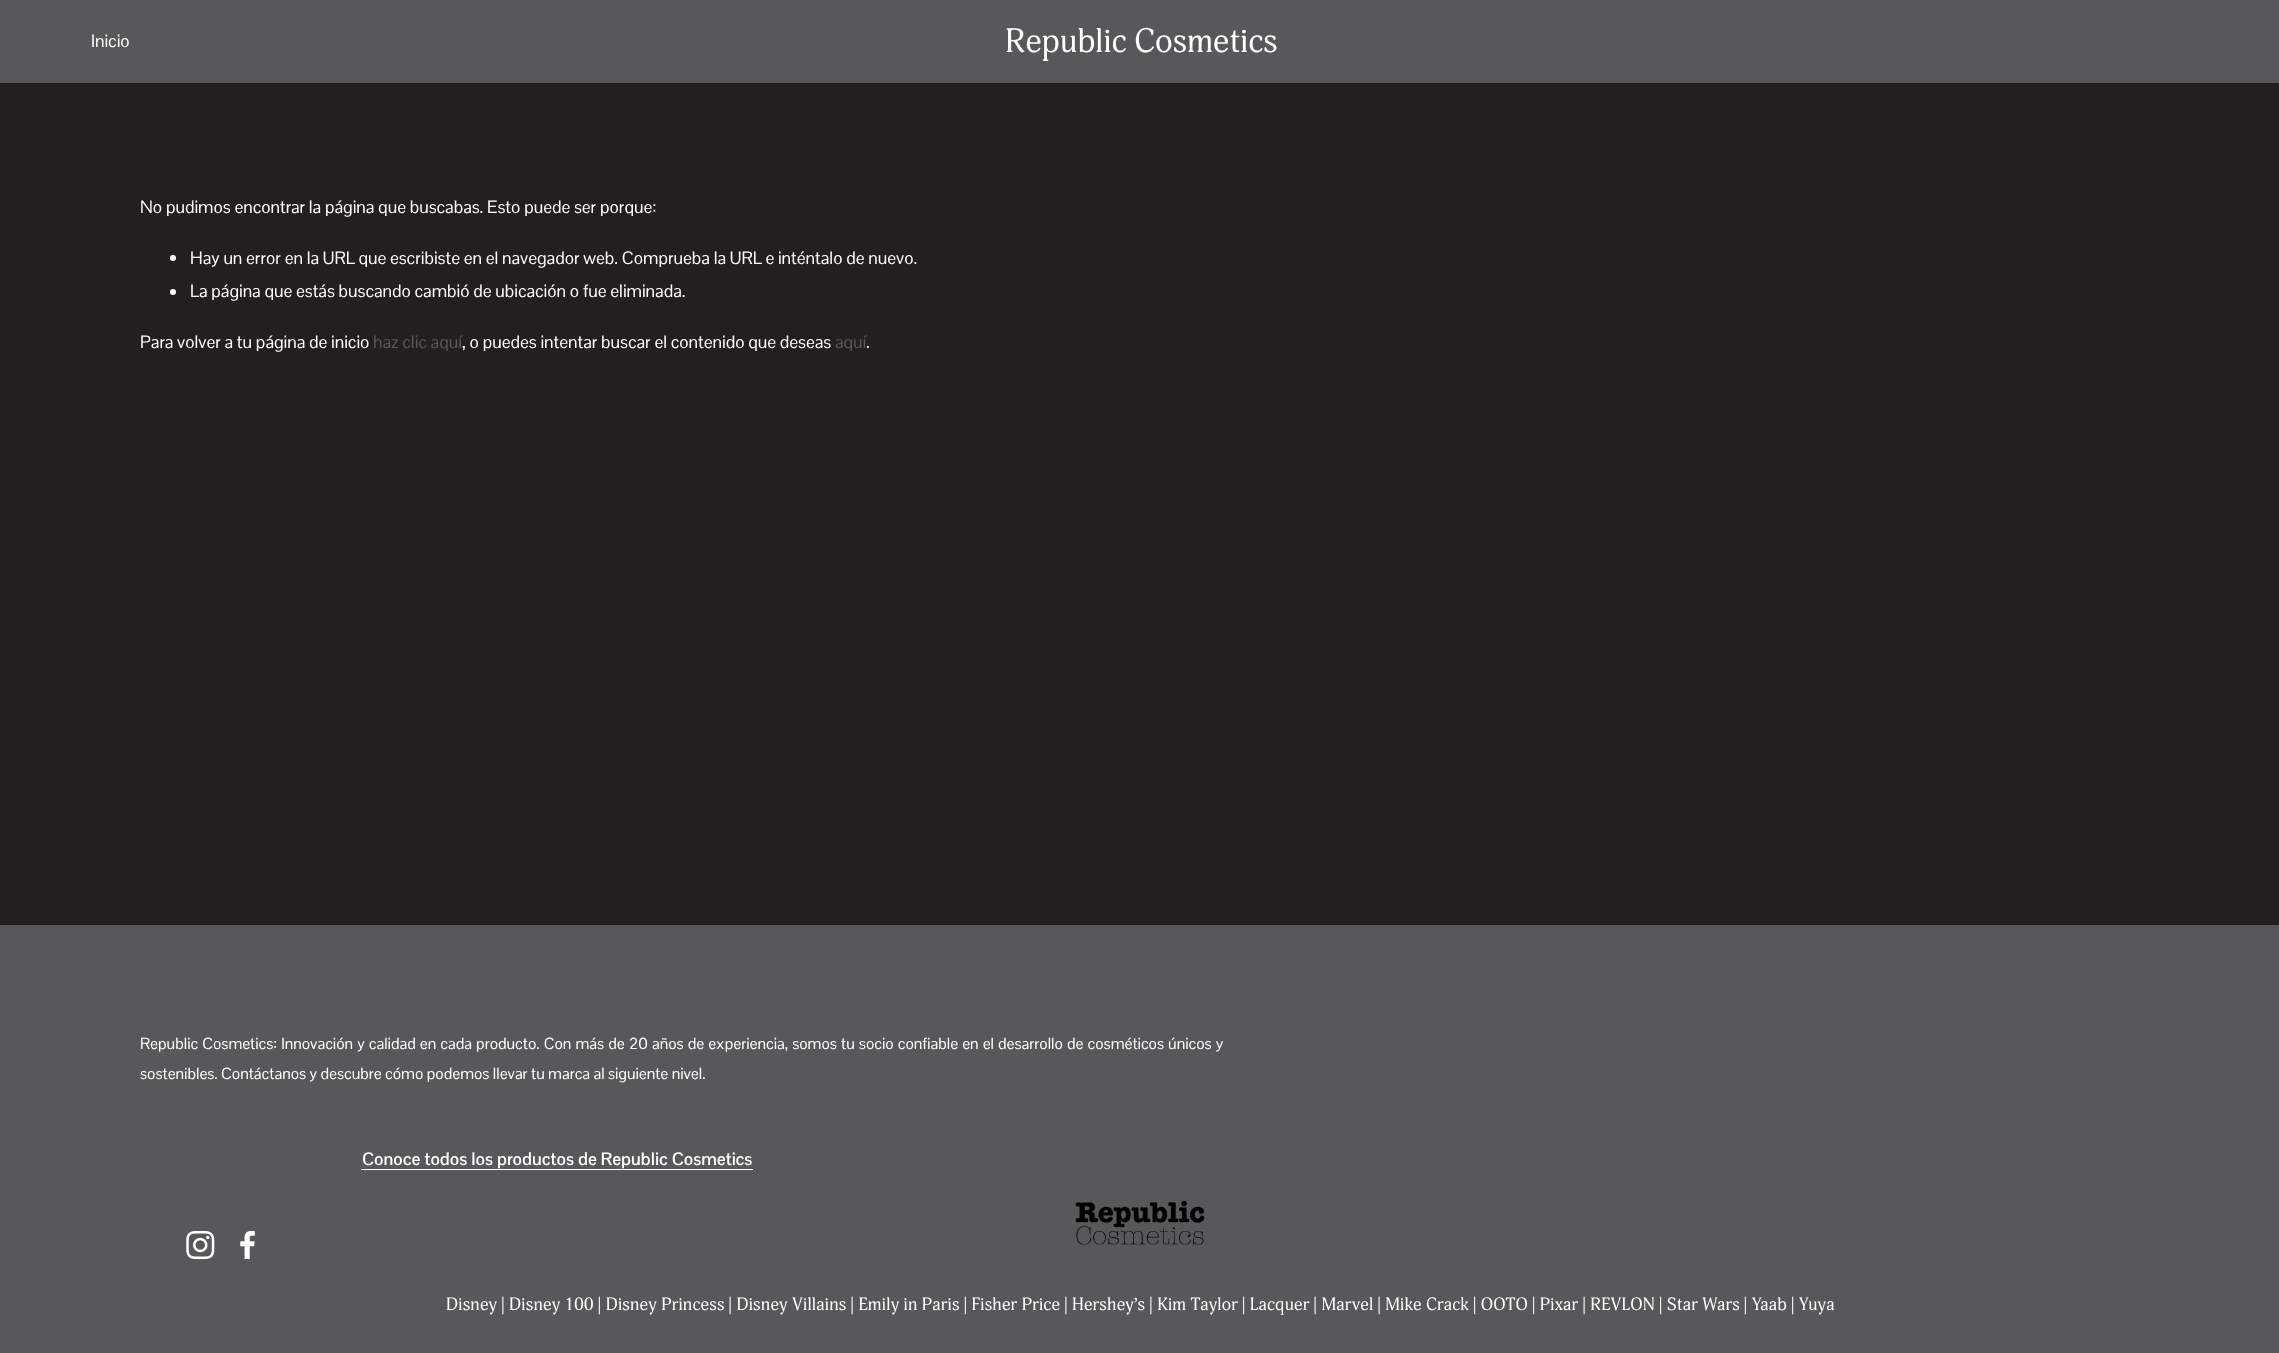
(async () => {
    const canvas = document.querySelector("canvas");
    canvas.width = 2279;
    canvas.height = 1353;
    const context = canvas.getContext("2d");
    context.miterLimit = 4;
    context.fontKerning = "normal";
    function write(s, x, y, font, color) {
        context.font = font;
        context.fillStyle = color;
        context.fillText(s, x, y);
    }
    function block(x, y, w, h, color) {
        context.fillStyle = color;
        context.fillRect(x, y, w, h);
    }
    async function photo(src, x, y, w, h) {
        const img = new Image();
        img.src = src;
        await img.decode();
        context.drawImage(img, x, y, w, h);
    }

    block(0, 0, 2279, 1353, "rgb(35, 31, 32)");
    block(0, 0, 2279, 83, "rgb(87, 88, 90)");
    write("Inicio", 91, 47, "17.5px Pontano Sans", "rgb(255, 255, 255)");
    write("Republic Cosmetics", 1005, 52, "33.25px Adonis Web", "rgb(255, 255, 255)");
    write("No pudimos encontrar la página que buscabas. Esto puede ser porque:", 140, 213, "17.5px Pontano Sans", "rgb(255, 255, 255)");
    context.beginPath();
    context.arc(173, 258, 3, 0, Math.PI * 2);
    context.fill();
    write("Hay un error en la URL que escribiste en el navegador web. Comprueba la URL e inténtalo de nuevo.", 190, 264, "17.5px Pontano Sans", "rgb(255, 255, 255)");
    context.beginPath();
    context.arc(173, 292, 3, 0, Math.PI * 2);
    context.fill();
    write("La página que estás buscando cambió de ubicación o fue eliminada.", 190, 297, "17.5px Pontano Sans", "rgb(255, 255, 255)");
    write("Para volver a tu página de inicio", 140, 348, "17.5px Pontano Sans", "rgb(255, 255, 255)");
    write("haz clic aquí", 373, 348, "17.5px Pontano Sans", "rgb(87, 88, 90)");
    write(", o puedes intentar buscar el contenido que deseas", 462, 348, "17.5px Pontano Sans", "rgb(255, 255, 255)");
    write("aquí", 835, 348, "17.5px Pontano Sans", "rgb(87, 88, 90)");
    write(".", 866, 348, "17.5px Pontano Sans", "rgb(255, 255, 255)");
    block(0, 925, 2279, 428, "rgb(87, 88, 90)");
    context.wordSpacing = "0.7px";
    write("Republic Cosmetics: Innovación y calidad en cada producto. Con más de 20 años de experiencia, somos tu socio confiable en el desarrollo de cosméticos únicos y", 140, 1049, "15.75px Pontano Sans", "rgb(255, 255, 255)");
    context.wordSpacing = "0px";
    write("sostenibles. Contáctanos y descubre cómo podemos llevar tu marca al siguiente nivel.", 140, 1079, "15.75px Pontano Sans", "rgb(255, 255, 255)");
    write("Conoce todos los productos de Republic Cosmetics", 362, 1165, "bold 17.5px Pontano Sans", "rgb(255, 255, 255)");
    block(361, 1169, 392, 1, "rgb(255, 255, 255)");
    await photo("media/1.png", 186, 1230, 29, 30);
    await photo("media/2.png", 240, 1231, 15, 29);
    await photo("media/3.png", 1075, 1200, 130, 45);
    context.letterSpacing = "0.18px";
    write("Disney | Disney 100 | Disney Princess | Disney Villains | Emily in Paris | Fisher Price | Hershey’s | Kim Taylor | Lacquer | Marvel | Mike Crack | OOTO | Pixar | REVLON | Star Wars | Yaab | Yuya", 446, 1310, "17.5px Adonis Web", "rgb(255, 255, 255)");
})();
